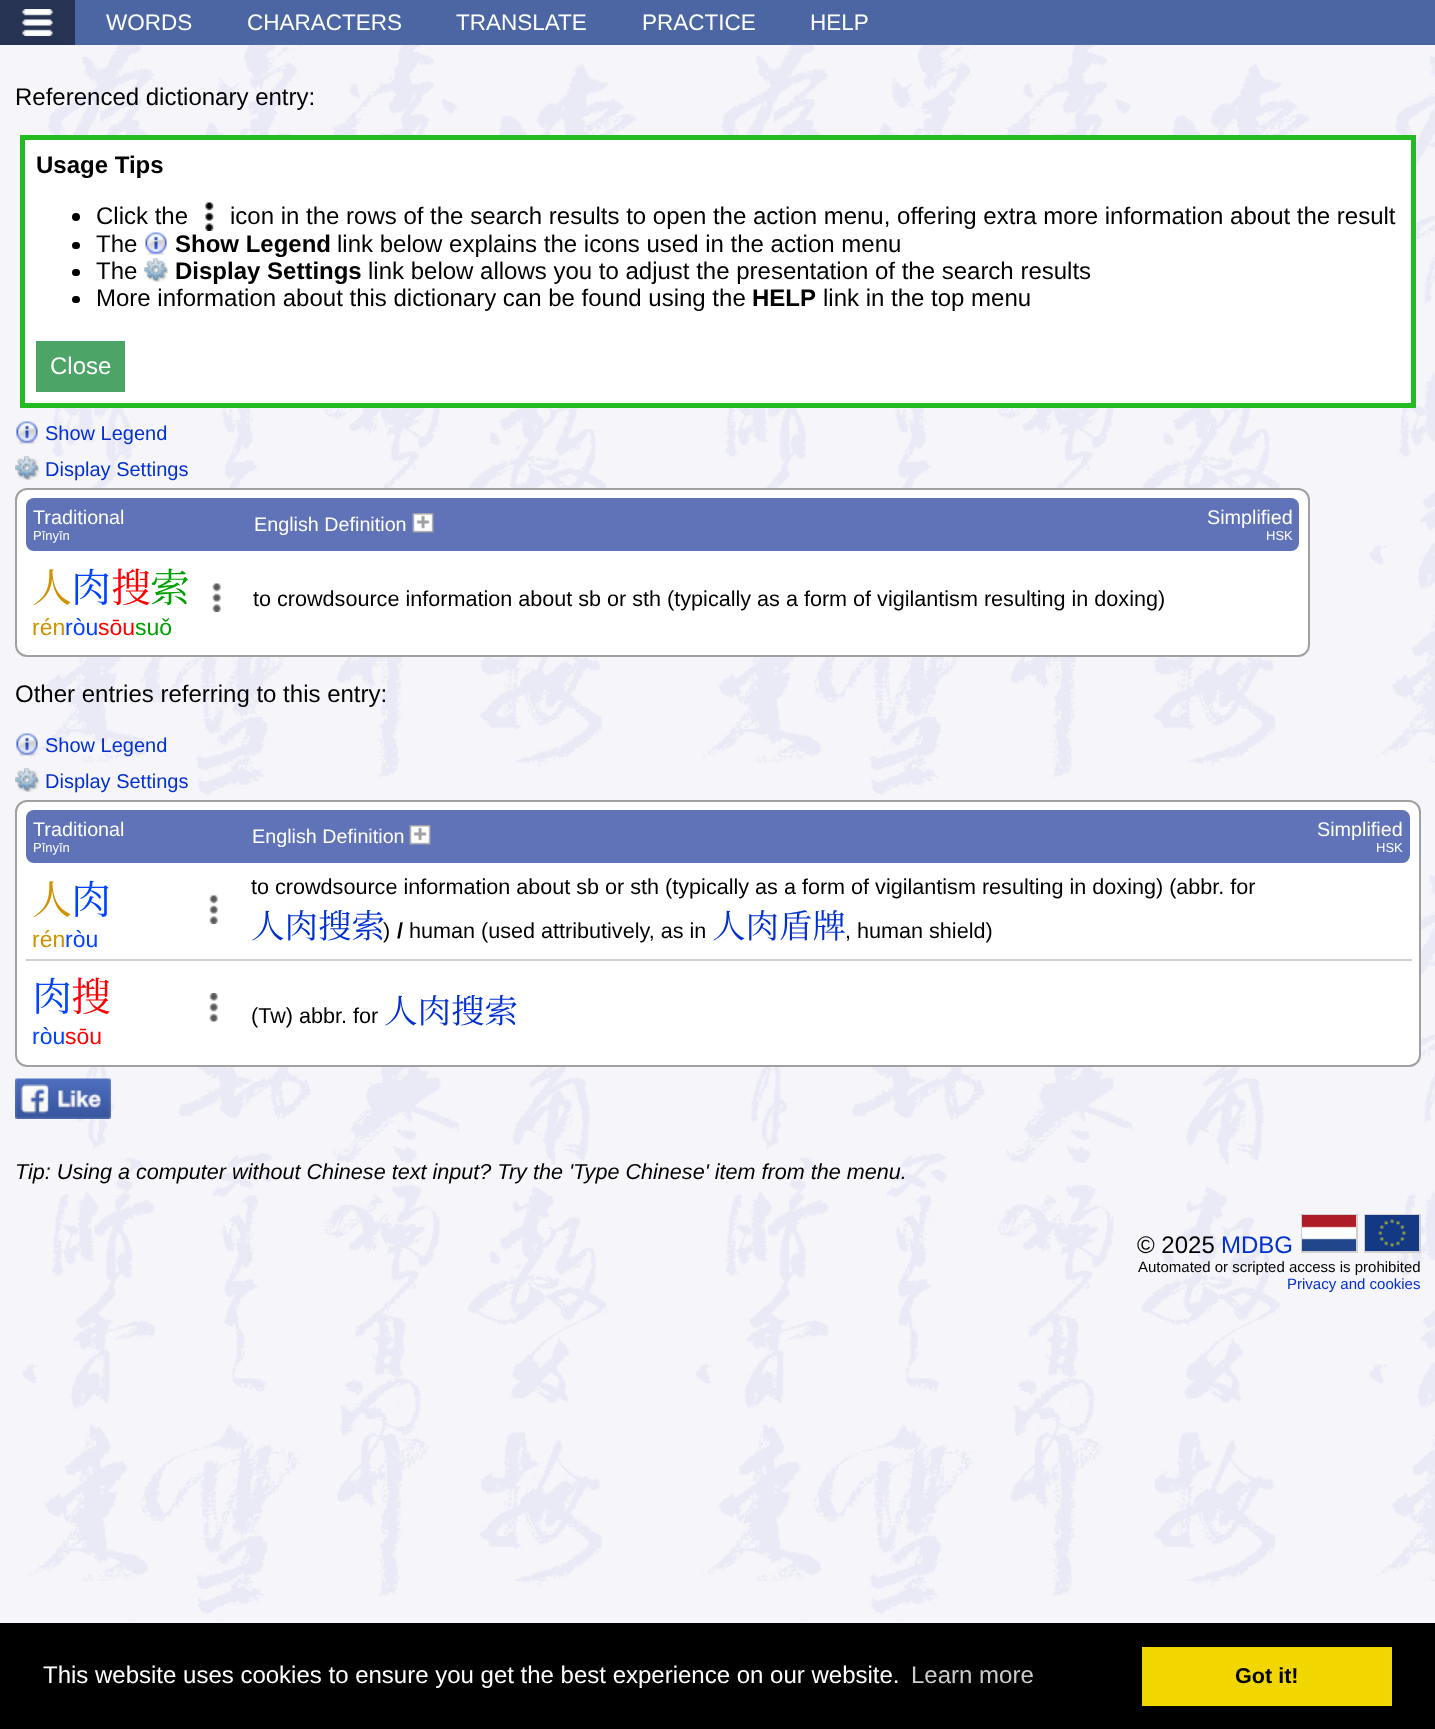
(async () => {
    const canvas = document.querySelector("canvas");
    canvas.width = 1435;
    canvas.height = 1729;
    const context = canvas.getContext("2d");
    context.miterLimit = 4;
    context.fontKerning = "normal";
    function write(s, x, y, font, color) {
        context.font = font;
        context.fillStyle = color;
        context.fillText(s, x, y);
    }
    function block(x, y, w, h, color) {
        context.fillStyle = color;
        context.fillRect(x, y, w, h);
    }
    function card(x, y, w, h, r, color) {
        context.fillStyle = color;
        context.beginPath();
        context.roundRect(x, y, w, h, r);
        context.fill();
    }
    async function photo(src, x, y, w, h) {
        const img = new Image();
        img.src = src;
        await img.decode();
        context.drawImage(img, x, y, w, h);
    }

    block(0, 0, 1435, 1729, "rgb(255, 255, 255)");
    await photo("media/1.png", 0, 45, 1435, 1578);
    block(75, 0, 1360, 45, "rgb(76, 102, 164)");
    block(0, 0, 75, 45, "rgb(38, 51, 82)");
    await photo("media/2.png", 22, 9, 31, 27);
    write("WORDS", 106, 30, "22.5px Liberation Sans", "rgb(255, 255, 255)");
    write("CHARACTERS", 247, 30, "22.5px Liberation Sans", "rgb(255, 255, 255)");
    write("TRANSLATE", 456, 30, "22.5px Liberation Sans", "rgb(255, 255, 255)");
    write("PRACTICE", 642, 30, "22.5px Liberation Sans", "rgb(255, 255, 255)");
    write("HELP", 810, 30, "22.5px Liberation Sans", "rgb(255, 255, 255)");
    write("Referenced dictionary entry:", 15, 105, "24px Liberation Sans", "rgb(0, 0, 0)");
    context.fillStyle = "rgb(255, 255, 255)";
    context.beginPath();
    context.rect(22.5, 137.5, 1391, 268);
    context.fill();
    context.strokeStyle = "rgb(34, 187, 34)";
    context.lineWidth = 5;
    context.stroke();
    write("Usage Tips", 36, 173, "bold 24px Liberation Sans", "rgb(0, 0, 0)");
    context.beginPath();
    context.arc(76, 217, 4, 0, Math.PI * 2);
    context.fill();
    write("Click the", 96, 224, "24px Liberation Sans", "rgb(0, 0, 0)");
    await photo("media/3.png", 205, 202, 9, 29);
    write("icon in the rows of the search results to open the action menu, offering extra more information about the result", 230, 224, "24px Liberation Sans", "rgb(0, 0, 0)");
    card(72, 242, 8, 7, 3.5, "rgb(0, 0, 0)");
    write("The", 96, 252, "24px Liberation Sans", "rgb(0, 0, 0)");
    await photo("media/4.png", 145, 232, 22, 23);
    write("Show Legend", 175, 252, "bold 24px Liberation Sans", "rgb(0, 0, 0)");
    write("link below explains the icons used in the action menu", 337, 252, "24px Liberation Sans", "rgb(0, 0, 0)");
    card(72, 269, 8, 7, 3.5, "rgb(0, 0, 0)");
    write("The", 96, 279, "24px Liberation Sans", "rgb(0, 0, 0)");
    await photo("media/5.png", 144, 258, 24, 24);
    write("Display Settings", 175, 279, "bold 24px Liberation Sans", "rgb(0, 0, 0)");
    write("link below allows you to adjust the presentation of the search results", 368, 279, "24px Liberation Sans", "rgb(0, 0, 0)");
    card(72, 296, 8, 7, 3.5, "rgb(0, 0, 0)");
    write("More information about this dictionary can be found using the", 96, 306, "24px Liberation Sans", "rgb(0, 0, 0)");
    write("HELP", 752, 306, "bold 24px Liberation Sans", "rgb(0, 0, 0)");
    write("link in the top menu", 823, 306, "24px Liberation Sans", "rgb(0, 0, 0)");
    block(36, 341, 89, 51, "rgb(76, 164, 102)");
    write("Close", 50, 374, "24px Liberation Sans", "rgb(255, 255, 255)");
    await photo("media/6.png", 16, 421, 22, 23);
    write("Show Legend", 45, 440, "20px Liberation Sans", "rgb(0, 48, 208)");
    await photo("media/7.png", 15, 456, 24, 24);
    write("Display Settings", 45, 476, "20px Liberation Sans", "rgb(0, 48, 208)");
    context.fillStyle = "rgb(255, 255, 255)";
    context.beginPath();
    context.roundRect(16, 489, 1293, 167, 11);
    context.fill();
    context.strokeStyle = "rgb(160, 160, 160)";
    context.lineWidth = 2;
    context.stroke();
    context.fillStyle = "rgb(96, 115, 185)";
    context.beginPath();
    context.roundRect(26, 498, 171, 53, [8, 0, 0, 8]);
    context.fill();
    write("Traditional", 33, 524, "19.75px Liberation Sans", "rgb(255, 255, 255)");
    write("Pīnyīn", 33, 540, "13px Liberation Sans", "rgb(255, 255, 255)");
    block(197, 498, 973, 53, "rgb(96, 115, 185)");
    context.beginPath();
    context.roundRect(1170, 498, 129, 53, [0, 8, 8, 0]);
    context.fill();
    write("Simplified", 1207, 524, "19.75px Liberation Sans", "rgb(255, 255, 255)");
    write("HSK", 1266, 540, "13px Liberation Sans", "rgb(255, 255, 255)");
    write("English Definition", 254, 531, "19.75px Liberation Sans", "rgb(255, 255, 255)");
    await photo("media/8.png", 412, 513, 22, 20);
    write("人", 32, 602, "40px Noto Serif CJK SC", "rgb(208, 144, 0)");
    write("肉", 71, 602, "40px Noto Serif CJK SC", "rgb(0, 68, 255)");
    write("搜", 111, 602, "40px Noto Serif CJK SC", "rgb(255, 0, 0)");
    write("索", 150, 602, "40px Noto Serif CJK SC", "rgb(0, 160, 0)");
    write("rén", 32, 635, "23px Liberation Sans", "rgb(208, 144, 0)");
    write("ròu", 65, 635, "23px Liberation Sans", "rgb(0, 68, 255)");
    write("sōu", 98, 635, "23px Liberation Sans", "rgb(255, 0, 0)");
    write("suǒ", 135, 635, "23px Liberation Sans", "rgb(0, 160, 0)");
    await photo("media/9.png", 212, 583, 9, 29);
    write("to crowdsource information about sb or sth (typically as a form of vigilantism resulting in doxing)", 253, 606, "21.6px Liberation Sans", "rgb(0, 0, 0)");
    write("Other entries referring to this entry:", 15, 702, "24px Liberation Sans", "rgb(0, 0, 0)");
    await photo("media/10.png", 16, 733, 22, 23);
    write("Show Legend", 45, 752, "20px Liberation Sans", "rgb(0, 48, 208)");
    await photo("media/11.png", 15, 768, 24, 24);
    write("Display Settings", 45, 788, "20px Liberation Sans", "rgb(0, 48, 208)");
    context.fillStyle = "rgb(255, 255, 255)";
    context.beginPath();
    context.roundRect(16, 801, 1404, 265, 11);
    context.fill();
    context.stroke();
    context.fillStyle = "rgb(96, 115, 185)";
    context.beginPath();
    context.roundRect(26, 810, 168, 53, [8, 0, 0, 8]);
    context.fill();
    write("Traditional", 33, 836, "19.75px Liberation Sans", "rgb(255, 255, 255)");
    write("Pīnyīn", 33, 852, "13px Liberation Sans", "rgb(255, 255, 255)");
    block(194, 810, 1087, 53, "rgb(96, 115, 185)");
    context.beginPath();
    context.roundRect(1281, 810, 129, 53, [0, 8, 8, 0]);
    context.fill();
    write("Simplified", 1317, 836, "19.75px Liberation Sans", "rgb(255, 255, 255)");
    write("HSK", 1376, 852, "13px Liberation Sans", "rgb(255, 255, 255)");
    write("English Definition", 252, 843, "19.75px Liberation Sans", "rgb(255, 255, 255)");
    await photo("media/8.png", 409, 825, 22, 20);
    write("人", 32, 914, "40px Noto Serif CJK SC", "rgb(208, 144, 0)");
    write("肉", 71, 914, "40px Noto Serif CJK SC", "rgb(0, 68, 255)");
    write("rén", 32, 947, "23px Liberation Sans", "rgb(208, 144, 0)");
    write("ròu", 65, 947, "23px Liberation Sans", "rgb(0, 68, 255)");
    await photo("media/9.png", 209, 895, 9, 29);
    write("to crowdsource information about sb or sth (typically as a form of vigilantism resulting in doxing) (abbr. for", 251, 894, "21.6px Liberation Sans", "rgb(0, 0, 0)");
    write("人肉搜索", 251, 938, "33.5px Noto Serif CJK SC", "rgb(0, 48, 208)");
    write(")", 383, 938, "21.6px Liberation Sans", "rgb(0, 0, 0)");
    write("/", 397, 938, "bold 21.6px Liberation Sans", "rgb(0, 0, 0)");
    write("human (used attributively, as in", 409, 938, "21.6px Liberation Sans", "rgb(0, 0, 0)");
    write("人肉盾牌", 712, 938, "33.5px Noto Serif CJK SC", "rgb(0, 48, 208)");
    write(", human shield)", 845, 938, "21.6px Liberation Sans", "rgb(0, 0, 0)");
    block(26, 959, 1386, 2, "rgb(208, 208, 208)");
    write("肉", 32, 1011, "40px Noto Serif CJK SC", "rgb(0, 68, 255)");
    write("搜", 71, 1011, "40px Noto Serif CJK SC", "rgb(255, 0, 0)");
    write("ròu", 32, 1044, "23px Liberation Sans", "rgb(0, 68, 255)");
    write("sōu", 65, 1044, "23px Liberation Sans", "rgb(255, 0, 0)");
    await photo("media/12.png", 209, 993, 9, 29);
    write("(Tw) abbr. for", 251, 1023, "21.6px Liberation Sans", "rgb(0, 0, 0)");
    write("人肉搜索", 384, 1023, "33.5px Noto Serif CJK SC", "rgb(0, 48, 208)");
    await photo("media/13.png", 15, 1078, 96, 41);
    write("Tip: Using a computer without Chinese text input? Try the 'Type Chinese' item from the menu.", 15, 1179, "italic 21.6px Liberation Sans", "rgb(0, 0, 0)");
    context.strokeStyle = "rgb(208, 208, 208)";
    context.strokeRect(1302, 1215, 55, 37);
    context.strokeRect(1365, 1215, 55, 37);
    write("© 2025", 1137, 1253, "24px Liberation Sans", "rgb(0, 0, 0)");
    write("MDBG", 1221, 1253, "24px Liberation Sans", "rgb(0, 48, 208)");
    await photo("media/14.png", 1302, 1215, 54, 36);
    await photo("media/15.png", 1365, 1215, 54, 36);
    write("Automated or scripted access is prohibited", 1138, 1272, "15px Liberation Sans", "rgb(0, 0, 0)");
    write("Privacy and cookies", 1287, 1289, "15px Liberation Sans", "rgb(0, 48, 208)");
    block(0, 1623, 1435, 106, "rgb(0, 0, 0)");
    write("This website uses cookies to ensure you get the best experience on our website.", 43, 1683, "24px Liberation Sans", "rgb(255, 255, 255)");
    write("Learn more", 911, 1683, "24px Liberation Sans", "rgb(204, 204, 204)");
    block(1142, 1647, 250, 59, "rgb(241, 214, 0)");
    write("Got it!", 1235, 1683, "bold 21.6px Liberation Sans", "rgb(0, 0, 0)");
})();
